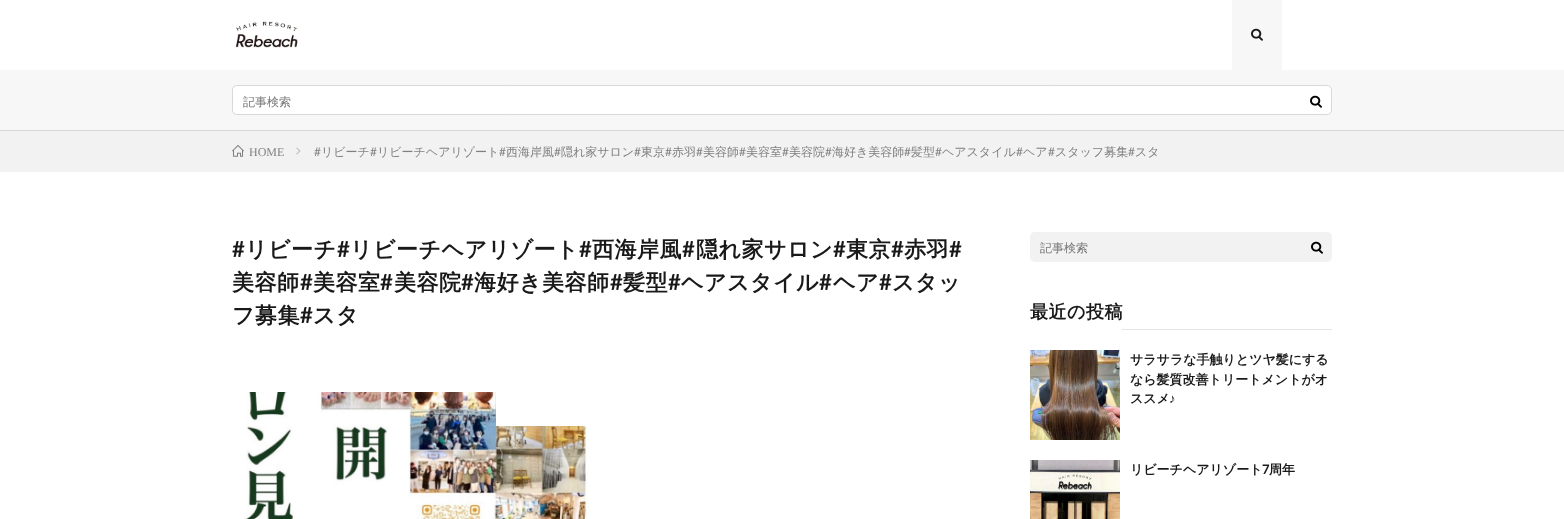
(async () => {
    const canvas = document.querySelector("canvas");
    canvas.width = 1564;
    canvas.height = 519;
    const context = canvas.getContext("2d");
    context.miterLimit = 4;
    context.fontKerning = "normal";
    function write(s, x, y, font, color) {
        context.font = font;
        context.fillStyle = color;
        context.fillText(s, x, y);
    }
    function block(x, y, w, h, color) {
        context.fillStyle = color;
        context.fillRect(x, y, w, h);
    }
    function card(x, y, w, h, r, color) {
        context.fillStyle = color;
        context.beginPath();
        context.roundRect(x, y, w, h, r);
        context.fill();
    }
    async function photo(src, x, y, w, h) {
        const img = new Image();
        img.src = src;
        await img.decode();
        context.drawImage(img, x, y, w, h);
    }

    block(0, 0, 1564, 519, "rgb(255, 255, 255)");
    await photo("media/1.png", 235, 21, 63, 27);
    block(1232, 0, 50, 70, "rgb(247, 247, 247)");
    await photo("media/2.png", 1251, 28, 12, 13);
    block(0, 70, 1564, 60, "rgb(247, 247, 247)");
    block(0, 130, 1564, 1, "rgb(216, 216, 216)");
    context.fillStyle = "rgb(255, 255, 255)";
    context.beginPath();
    context.roundRect(232.5, 85.5, 1099, 29, 4.5);
    context.fill();
    context.strokeStyle = "rgb(216, 216, 216)";
    context.stroke();
    write("記事検索", 243, 106, "500 12px WenQuanYi Zen Hei", "rgb(117, 117, 117)");
    await photo("media/3.png", 1310, 95, 12, 13);
    block(0, 131, 1564, 41, "rgb(242, 242, 242)");
    await photo("media/4.png", 232, 145, 12, 12);
    write("HOME", 249, 156, "12px Liberation Serif", "rgb(127, 127, 127)");
    context.fillStyle = "rgb(191, 191, 191)";
    context.beginPath();
    context.moveTo(297, 147.5);
    context.lineTo(300.5, 151);
    context.lineTo(299.5, 151.5);
    context.lineTo(296, 148);
    context.closePath();
    context.fill();
    context.beginPath();
    context.moveTo(299.5, 150.5);
    context.lineTo(300.5, 151);
    context.lineTo(297, 154.5);
    context.lineTo(296, 154);
    context.closePath();
    context.fill();
    write("#", 314, 156, "12px Lato", "rgb(127, 127, 127)");
    write("リビーチ", 321, 156, "500 12px WenQuanYi Zen Hei", "rgb(127, 127, 127)");
    write("#", 370, 156, "12px Lato", "rgb(127, 127, 127)");
    write("リビーチヘアリゾート", 377, 156, "500 12px WenQuanYi Zen Hei", "rgb(127, 127, 127)");
    write("#", 499, 156, "12px Lato", "rgb(127, 127, 127)");
    write("西海岸風", 506, 156, "500 12px WenQuanYi Zen Hei", "rgb(127, 127, 127)");
    write("#", 554, 156, "12px Lato", "rgb(127, 127, 127)");
    write("隠れ家サロン", 561, 156, "500 12px WenQuanYi Zen Hei", "rgb(127, 127, 127)");
    write("#", 634, 156, "12px Lato", "rgb(127, 127, 127)");
    write("東京", 641, 156, "500 12px WenQuanYi Zen Hei", "rgb(127, 127, 127)");
    write("#", 665, 156, "12px Lato", "rgb(127, 127, 127)");
    write("赤羽", 672, 156, "500 12px WenQuanYi Zen Hei", "rgb(127, 127, 127)");
    write("#", 696, 156, "12px Lato", "rgb(127, 127, 127)");
    write("美容師", 703, 156, "500 12px WenQuanYi Zen Hei", "rgb(127, 127, 127)");
    write("#", 739, 156, "12px Lato", "rgb(127, 127, 127)");
    write("美容室", 746, 156, "500 12px WenQuanYi Zen Hei", "rgb(127, 127, 127)");
    write("#", 782, 156, "12px Lato", "rgb(127, 127, 127)");
    write("美容院", 789, 156, "500 12px WenQuanYi Zen Hei", "rgb(127, 127, 127)");
    write("#", 825, 156, "12px Lato", "rgb(127, 127, 127)");
    write("海好き美容師", 832, 156, "500 12px WenQuanYi Zen Hei", "rgb(127, 127, 127)");
    write("#", 904, 156, "12px Lato", "rgb(127, 127, 127)");
    write("髪型", 911, 156, "500 12px WenQuanYi Zen Hei", "rgb(127, 127, 127)");
    write("#", 935, 156, "12px Lato", "rgb(127, 127, 127)");
    write("ヘアスタイル", 942, 156, "500 12px WenQuanYi Zen Hei", "rgb(127, 127, 127)");
    write("#", 1016, 156, "12px Lato", "rgb(127, 127, 127)");
    write("ヘア", 1023, 156, "500 12px WenQuanYi Zen Hei", "rgb(127, 127, 127)");
    write("#", 1048, 156, "12px Lato", "rgb(127, 127, 127)");
    write("スタッフ募集", 1055, 156, "500 12px WenQuanYi Zen Hei", "rgb(127, 127, 127)");
    write("#", 1128, 156, "12px Lato", "rgb(127, 127, 127)");
    write("スタ", 1135, 156, "500 12px WenQuanYi Zen Hei", "rgb(127, 127, 127)");
    context.letterSpacing = "0.5px";
    write("#", 232, 257, "bold 22px Lato", "rgb(25, 25, 25)");
    write("リビーチ", 245, 257, "bold 22px WenQuanYi Zen Hei", "rgb(25, 25, 25)");
    write("#", 337, 257, "bold 22px Lato", "rgb(25, 25, 25)");
    write("リビーチヘアリゾート", 350, 257, "bold 22px WenQuanYi Zen Hei", "rgb(25, 25, 25)");
    write("#", 579, 257, "bold 22px Lato", "rgb(25, 25, 25)");
    write("西海岸風", 592, 257, "bold 22px WenQuanYi Zen Hei", "rgb(25, 25, 25)");
    write("#", 682, 257, "bold 22px Lato", "rgb(25, 25, 25)");
    write("隠れ家サロン", 696, 257, "bold 22px WenQuanYi Zen Hei", "rgb(25, 25, 25)");
    write("#", 833, 257, "bold 22px Lato", "rgb(25, 25, 25)");
    write("東京", 846, 257, "bold 22px WenQuanYi Zen Hei", "rgb(25, 25, 25)");
    write("#", 891, 257, "bold 22px Lato", "rgb(25, 25, 25)");
    write("赤羽", 904, 257, "bold 22px WenQuanYi Zen Hei", "rgb(25, 25, 25)");
    write("#", 949, 257, "bold 22px Lato", "rgb(25, 25, 25)");
    write("美容師", 232, 290, "bold 22px WenQuanYi Zen Hei", "rgb(25, 25, 25)");
    write("#", 300, 290, "bold 22px Lato", "rgb(25, 25, 25)");
    write("美容室", 313, 290, "bold 22px WenQuanYi Zen Hei", "rgb(25, 25, 25)");
    write("#", 380, 290, "bold 22px Lato", "rgb(25, 25, 25)");
    write("美容院", 394, 290, "bold 22px WenQuanYi Zen Hei", "rgb(25, 25, 25)");
    write("#", 461, 290, "bold 22px Lato", "rgb(25, 25, 25)");
    write("海好き美容師", 474, 290, "bold 22px WenQuanYi Zen Hei", "rgb(25, 25, 25)");
    write("#", 610, 290, "bold 22px Lato", "rgb(25, 25, 25)");
    write("髪型", 623, 290, "bold 22px WenQuanYi Zen Hei", "rgb(25, 25, 25)");
    write("#", 668, 290, "bold 22px Lato", "rgb(25, 25, 25)");
    write("ヘアスタイル", 681, 290, "bold 22px WenQuanYi Zen Hei", "rgb(25, 25, 25)");
    write("#", 819, 290, "bold 22px Lato", "rgb(25, 25, 25)");
    write("ヘア", 833, 290, "bold 22px WenQuanYi Zen Hei", "rgb(25, 25, 25)");
    write("#", 879, 290, "bold 22px Lato", "rgb(25, 25, 25)");
    write("スタッ", 892, 290, "bold 22px WenQuanYi Zen Hei", "rgb(25, 25, 25)");
    write("フ募集", 232, 323, "bold 22px WenQuanYi Zen Hei", "rgb(25, 25, 25)");
    write("#", 300, 323, "bold 22px Lato", "rgb(25, 25, 25)");
    write("スタ", 313, 323, "bold 22px WenQuanYi Zen Hei", "rgb(25, 25, 25)");
    await photo("media/5.png", 244, 392, 344, 127);
    block(496, 392, 92, 34, "rgb(255, 255, 255)");
    card(1030, 232, 302, 30, 5, "rgb(242, 242, 242)");
    context.save();
    context.beginPath();
    context.rect(1040, 240, 252, 17);
    context.clip();
    context.letterSpacing = "0px";
    write("記事検索", 1040, 252, "500 12px WenQuanYi Zen Hei", "rgb(117, 117, 117)");
    context.restore();
    await photo("media/6.png", 1311, 241, 12, 13);
    write("最近の投稿", 1030, 318, "bold 18px WenQuanYi Zen Hei", "rgb(25, 25, 25)");
    block(1122, 329, 210, 1, "rgb(229, 229, 229)");
    await photo("media/7.png", 1030, 350, 90, 90);
    context.letterSpacing = "0px";
    write("サラサラな手触りとツヤ髪にする", 1130, 364, "bold 13px WenQuanYi Zen Hei", "rgb(25, 25, 25)");
    write("なら髪質改善トリートメントがオ", 1130, 384, "bold 13px WenQuanYi Zen Hei", "rgb(25, 25, 25)");
    write("ススメ", 1130, 403, "bold 13px WenQuanYi Zen Hei", "rgb(25, 25, 25)");
    write("♪", 1169, 403, "bold 13px Liberation Serif", "rgb(25, 25, 25)");
    await photo("media/8.png", 1030, 460, 90, 59);
    write("リビーチヘアリゾート", 1130, 474, "bold 13px WenQuanYi Zen Hei", "rgb(25, 25, 25)");
    write("7", 1262, 474, "bold 13px Lato", "rgb(25, 25, 25)");
    write("周年", 1269, 474, "bold 13px WenQuanYi Zen Hei", "rgb(25, 25, 25)");
})();
